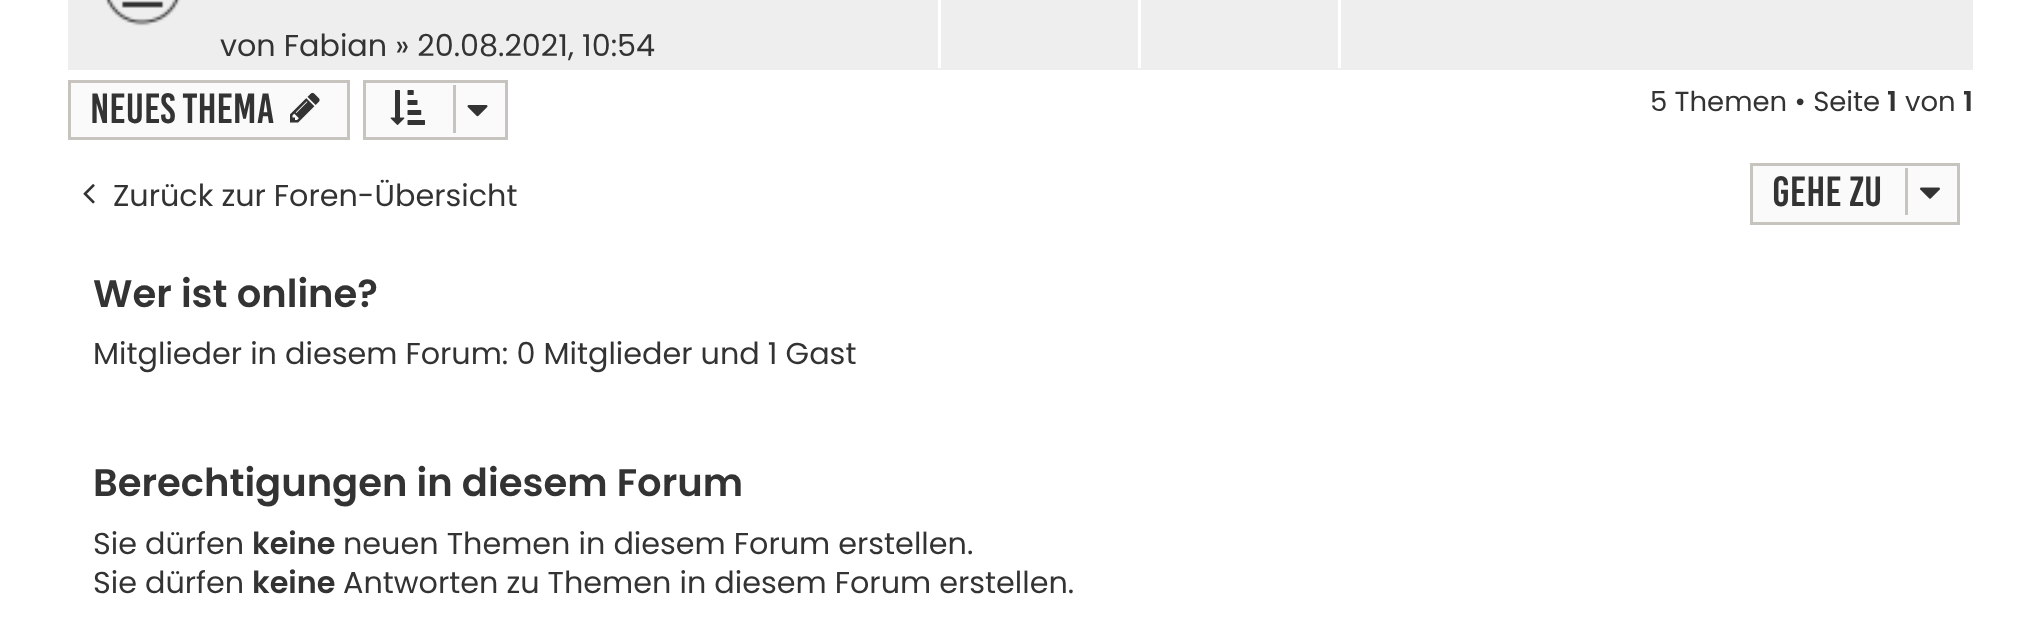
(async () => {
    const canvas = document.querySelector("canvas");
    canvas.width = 2040;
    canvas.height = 620;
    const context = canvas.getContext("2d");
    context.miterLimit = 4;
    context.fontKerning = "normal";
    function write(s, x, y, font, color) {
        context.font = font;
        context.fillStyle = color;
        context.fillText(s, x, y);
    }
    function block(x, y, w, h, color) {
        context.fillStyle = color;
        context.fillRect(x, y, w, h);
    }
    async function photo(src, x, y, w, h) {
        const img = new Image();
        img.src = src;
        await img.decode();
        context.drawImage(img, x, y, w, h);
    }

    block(0, 0, 2040, 620, "rgb(255, 255, 255)");
    block(68, 0, 1905, 70, "rgb(238, 238, 238)");
    await photo("media/1.png", 105, 0, 76, 26);
    write("von Fabian » 20.08.2021, 10:54", 220, 56, "30.25px Poppins", "rgb(51, 51, 51)");
    block(938, 0, 3, 68, "rgb(255, 255, 255)");
    block(1138, 0, 3, 68, "rgb(255, 255, 255)");
    block(1338, 0, 3, 68, "rgb(255, 255, 255)");
    context.fillStyle = "rgb(250, 250, 250)";
    context.beginPath();
    context.rect(69.5, 81.5, 279, 57);
    context.fill();
    context.strokeStyle = "rgb(199, 195, 191)";
    context.lineWidth = 3;
    context.stroke();
    write("Neues Thema", 90, 123, "32.5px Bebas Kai", "rgb(51, 51, 51)");
    await photo("media/2.png", 290, 92, 30, 31);
    context.fillStyle = "rgb(250, 250, 250)";
    context.beginPath();
    context.rect(364.5, 81.5, 142, 57);
    context.fill();
    context.stroke();
    await photo("media/3.png", 390, 90, 35, 35);
    block(453, 85, 3, 48, "rgb(199, 195, 191)");
    await photo("media/4.png", 467, 105, 21, 12);
    write("5 Themen • Seite", 1650, 111, "27.5px Poppins", "rgb(51, 51, 51)");
    write("1", 1887, 111, "600 27.5px Poppins", "rgb(51, 51, 51)");
    write("von", 1905, 111, "27.5px Poppins", "rgb(51, 51, 51)");
    write("1", 1963, 111, "600 27.5px Poppins", "rgb(51, 51, 51)");
    await photo("media/5.png", 83, 184, 12, 20);
    write("Zurück zur Foren-Übersicht", 113, 206, "30.25px Poppins", "rgb(51, 51, 51)");
    context.fillStyle = "rgb(250, 250, 250)";
    context.beginPath();
    context.rect(1751.5, 164.5, 207, 59);
    context.fill();
    context.stroke();
    write("Gehe zu", 1772, 206, "32.5px Bebas Kai", "rgb(51, 51, 51)");
    block(1905, 168, 3, 47, "rgb(199, 195, 191)");
    await photo("media/6.png", 1920, 187, 20, 12);
    write("Wer ist online?", 93, 307, "600 38.5px Poppins", "rgb(51, 51, 51)");
    write("Mitglieder in diesem Forum: 0 Mitglieder und 1 Gast", 93, 364, "30.25px Poppins", "rgb(51, 51, 51)");
    write("Berechtigungen in diesem Forum", 93, 496, "600 38.5px Poppins", "rgb(51, 51, 51)");
    write("Sie dürfen", 93, 554, "30.25px Poppins", "rgb(51, 51, 51)");
    write("keine", 252, 554, "600 30.25px Poppins", "rgb(51, 51, 51)");
    write("neuen Themen in diesem Forum erstellen.", 343, 554, "30.25px Poppins", "rgb(51, 51, 51)");
    write("Sie dürfen", 93, 593, "30.25px Poppins", "rgb(51, 51, 51)");
    write("keine", 252, 593, "600 30.25px Poppins", "rgb(51, 51, 51)");
    write("Antworten zu Themen in diesem Forum erstellen.", 343, 593, "30.25px Poppins", "rgb(51, 51, 51)");
})();
